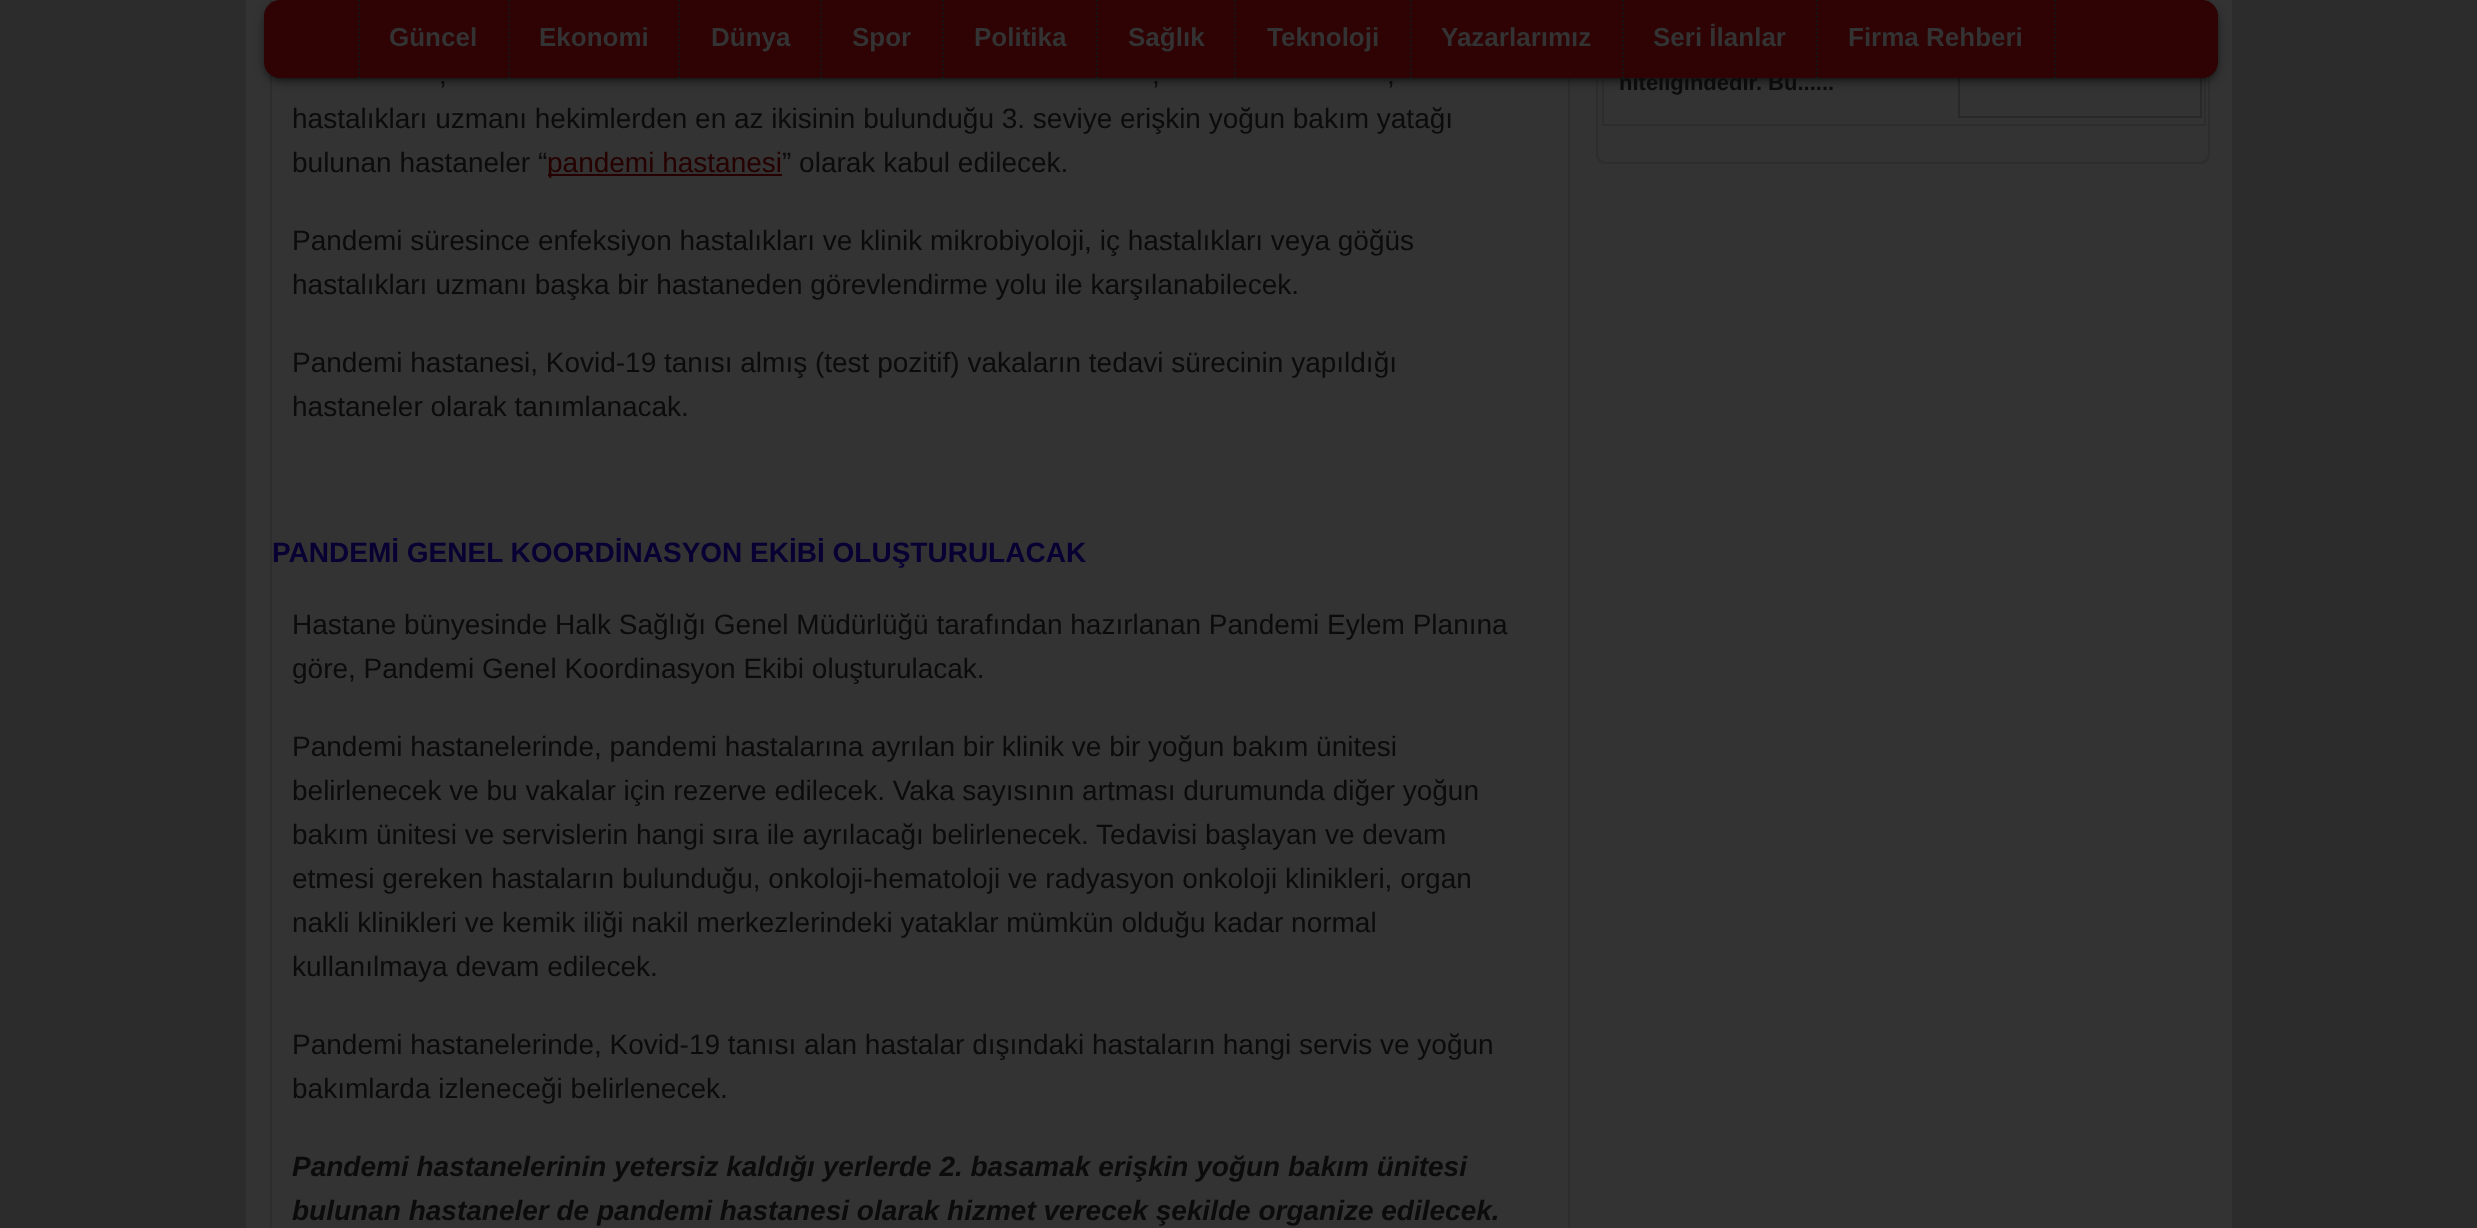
(async () => {
    const canvas = document.querySelector("canvas");
    canvas.width = 2477;
    canvas.height = 1228;
    const context = canvas.getContext("2d");
    context.miterLimit = 4;
    context.fontKerning = "normal";
    function write(s, x, y, font, color) {
        context.font = font;
        context.fillStyle = color;
        context.fillText(s, x, y);
    }
    function block(x, y, w, h, color) {
        context.fillStyle = color;
        context.fillRect(x, y, w, h);
    }
    function card(x, y, w, h, r, color) {
        context.fillStyle = color;
        context.beginPath();
        context.roundRect(x, y, w, h, r);
        context.fill();
    }

    block(0, 0, 2477, 1228, "rgb(44, 44, 44)");
    block(246, 0, 1986, 1228, "rgb(51, 51, 51)");
    block(1568, 78, 2, 1150, "rgb(45, 45, 45)");
    block(270, 0, 2, 1228, "rgb(45, 45, 45)");
    context.beginPath();
    context.moveTo(1606, -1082);
    context.lineTo(2200, -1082);
    context.bezierCurveTo(2206, -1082, 2210, -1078, 2210, -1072);
    context.lineTo(2210, 154);
    context.bezierCurveTo(2210, 160, 2206, 164, 2200, 164);
    context.lineTo(1606, 164);
    context.bezierCurveTo(1600, 164, 1596, 160, 1596, 154);
    context.lineTo(1596, -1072);
    context.bezierCurveTo(1596, -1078, 1600, -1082, 1606, -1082);
    context.closePath();
    context.moveTo(1606, -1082);
    context.lineTo(2200, -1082);
    context.bezierCurveTo(2204, -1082, 2208, -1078, 2208, -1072);
    context.lineTo(2208, 154);
    context.bezierCurveTo(2208, 158, 2204, 162, 2200, 162);
    context.lineTo(1606, 162);
    context.bezierCurveTo(1602, 162, 1598, 158, 1598, 154);
    context.lineTo(1598, -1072);
    context.bezierCurveTo(1598, -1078, 1602, -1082, 1606, -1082);
    context.closePath();
    context.fill("evenodd");
    context.strokeStyle = "rgb(45, 45, 45)";
    context.lineWidth = 2;
    context.strokeRect(1603, -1, 602, 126);
    context.strokeStyle = "rgb(40, 40, 40)";
    context.strokeRect(1959, -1, 242, 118);
    context.fillStyle = "rgb(0, 0, 0)";
    context.filter = "blur(6px)";
    context.beginPath();
    context.roundRect(268, 8, 1946, 70, 12);
    context.fill();
    context.filter = "none";
    write("niteliğindedir. Bu......", 1619, 90, "bold 22px Liberation Sans", "rgb(11, 11, 11)");
    card(264, 0, 1954, 78, 16, "rgb(47, 2, 4)");
    context.beginPath();
    context.moveTo(359, 0);
    context.lineTo(359, 78);
    context.strokeStyle = "rgb(20, 20, 20)";
    context.setLineDash([2, 2]);
    context.stroke();
    context.beginPath();
    context.moveTo(509, 0);
    context.lineTo(509, 78);
    context.stroke();
    write("Güncel", 389, 46, "bold 26px Liberation Sans", "rgb(51, 51, 51)");
    context.beginPath();
    context.moveTo(679, 0);
    context.lineTo(679, 78);
    context.stroke();
    write("Ekonomi", 539, 46, "bold 26px Liberation Sans", "rgb(51, 51, 51)");
    context.beginPath();
    context.moveTo(821, 0);
    context.lineTo(821, 78);
    context.stroke();
    write("Dünya", 711, 46, "bold 26px Liberation Sans", "rgb(51, 51, 51)");
    context.beginPath();
    context.moveTo(943, 0);
    context.lineTo(943, 78);
    context.stroke();
    write("Spor", 852, 46, "bold 26px Liberation Sans", "rgb(51, 51, 51)");
    context.beginPath();
    context.moveTo(1097, 0);
    context.lineTo(1097, 78);
    context.stroke();
    write("Politika", 974, 46, "bold 26px Liberation Sans", "rgb(51, 51, 51)");
    context.beginPath();
    context.moveTo(1235, 0);
    context.lineTo(1235, 78);
    context.stroke();
    write("Sağlık", 1128, 46, "bold 26px Liberation Sans", "rgb(51, 51, 51)");
    context.beginPath();
    context.moveTo(1411, 0);
    context.lineTo(1411, 78);
    context.stroke();
    write("Teknoloji", 1267, 46, "bold 26px Liberation Sans", "rgb(51, 51, 51)");
    context.beginPath();
    context.moveTo(1623, 0);
    context.lineTo(1623, 78);
    context.stroke();
    write("Yazarlarımız", 1441, 46, "bold 26px Liberation Sans", "rgb(51, 51, 51)");
    context.beginPath();
    context.moveTo(1817, 0);
    context.lineTo(1817, 78);
    context.stroke();
    write("Seri İlanlar", 1653, 46, "bold 26px Liberation Sans", "rgb(51, 51, 51)");
    context.beginPath();
    context.moveTo(2055, 0);
    context.lineTo(2055, 78);
    context.stroke();
    write("Firma Rehberi", 1848, 46, "bold 26px Liberation Sans", "rgb(51, 51, 51)");
    write(",", 439, 84, "28px Liberation Sans", "rgb(11, 11, 11)");
    write(",", 1152, 84, "28px Liberation Sans", "rgb(11, 11, 11)");
    write(",", 1387, 84, "28px Liberation Sans", "rgb(11, 11, 11)");
    write("hastalıkları uzmanı hekimlerden en az ikisinin bulunduğu 3. seviye erişkin yoğun bakım yatağı", 292, 128, "28px Liberation Sans", "rgb(11, 11, 11)");
    write("bulunan hastaneler “", 292, 172, "28px Liberation Sans", "rgb(11, 11, 11)");
    block(548, 174, 234, 2, "rgb(38, 0, 0)");
    write("pandemi hastanesi", 547, 172, "28px Liberation Sans", "rgb(38, 0, 0)");
    write("” olarak kabul edilecek.", 782, 172, "28px Liberation Sans", "rgb(11, 11, 11)");
    write("Pandemi süresince enfeksiyon hastalıkları ve klinik mikrobiyoloji, iç hastalıkları veya göğüs", 292, 250, "28px Liberation Sans", "rgb(11, 11, 11)");
    write("hastalıkları uzmanı başka bir hastaneden görevlendirme yolu ile karşılanabilecek.", 292, 294, "28px Liberation Sans", "rgb(11, 11, 11)");
    write("Pandemi hastanesi, Kovid-19 tanısı almış (test pozitif) vakaların tedavi sürecinin yapıldığı", 292, 372, "28px Liberation Sans", "rgb(11, 11, 11)");
    write("hastaneler olarak tanımlanacak.", 292, 416, "28px Liberation Sans", "rgb(11, 11, 11)");
    write("PANDEMİ GENEL KOORDİNASYON EKİBİ OLUŞTURULACAK", 272, 562, "bold 28px Liberation Sans", "rgb(8, 0, 51)");
    write("Hastane bünyesinde Halk Sağlığı Genel Müdürlüğü tarafından hazırlanan Pandemi Eylem Planına", 292, 634, "28px Liberation Sans", "rgb(11, 11, 11)");
    write("göre, Pandemi Genel Koordinasyon Ekibi oluşturulacak.", 292, 678, "28px Liberation Sans", "rgb(11, 11, 11)");
    write("Pandemi hastanelerinde, pandemi hastalarına ayrılan bir klinik ve bir yoğun bakım ünitesi", 292, 756, "28px Liberation Sans", "rgb(11, 11, 11)");
    write("belirlenecek ve bu vakalar için rezerve edilecek. Vaka sayısının artması durumunda diğer yoğun", 292, 800, "28px Liberation Sans", "rgb(11, 11, 11)");
    write("bakım ünitesi ve servislerin hangi sıra ile ayrılacağı belirlenecek. Tedavisi başlayan ve devam", 292, 844, "28px Liberation Sans", "rgb(11, 11, 11)");
    write("etmesi gereken hastaların bulunduğu, onkoloji-hematoloji ve radyasyon onkoloji klinikleri, organ", 292, 888, "28px Liberation Sans", "rgb(11, 11, 11)");
    write("nakli klinikleri ve kemik iliği nakil merkezlerindeki yataklar mümkün olduğu kadar normal", 292, 932, "28px Liberation Sans", "rgb(11, 11, 11)");
    write("kullanılmaya devam edilecek.", 292, 976, "28px Liberation Sans", "rgb(11, 11, 11)");
    write("Pandemi hastanelerinde, Kovid-19 tanısı alan hastalar dışındaki hastaların hangi servis ve yoğun", 292, 1054, "28px Liberation Sans", "rgb(11, 11, 11)");
    write("bakımlarda izleneceği belirlenecek.", 292, 1098, "28px Liberation Sans", "rgb(11, 11, 11)");
    write("Pandemi hastanelerinin yetersiz kaldığı yerlerde 2. basamak erişkin yoğun bakım ünitesi", 292, 1176, "italic bold 28px Liberation Sans", "rgb(11, 11, 11)");
    write("bulunan hastaneler de pandemi hastanesi olarak hizmet verecek şekilde organize edilecek.", 292, 1220, "italic bold 28px Liberation Sans", "rgb(11, 11, 11)");
})();
